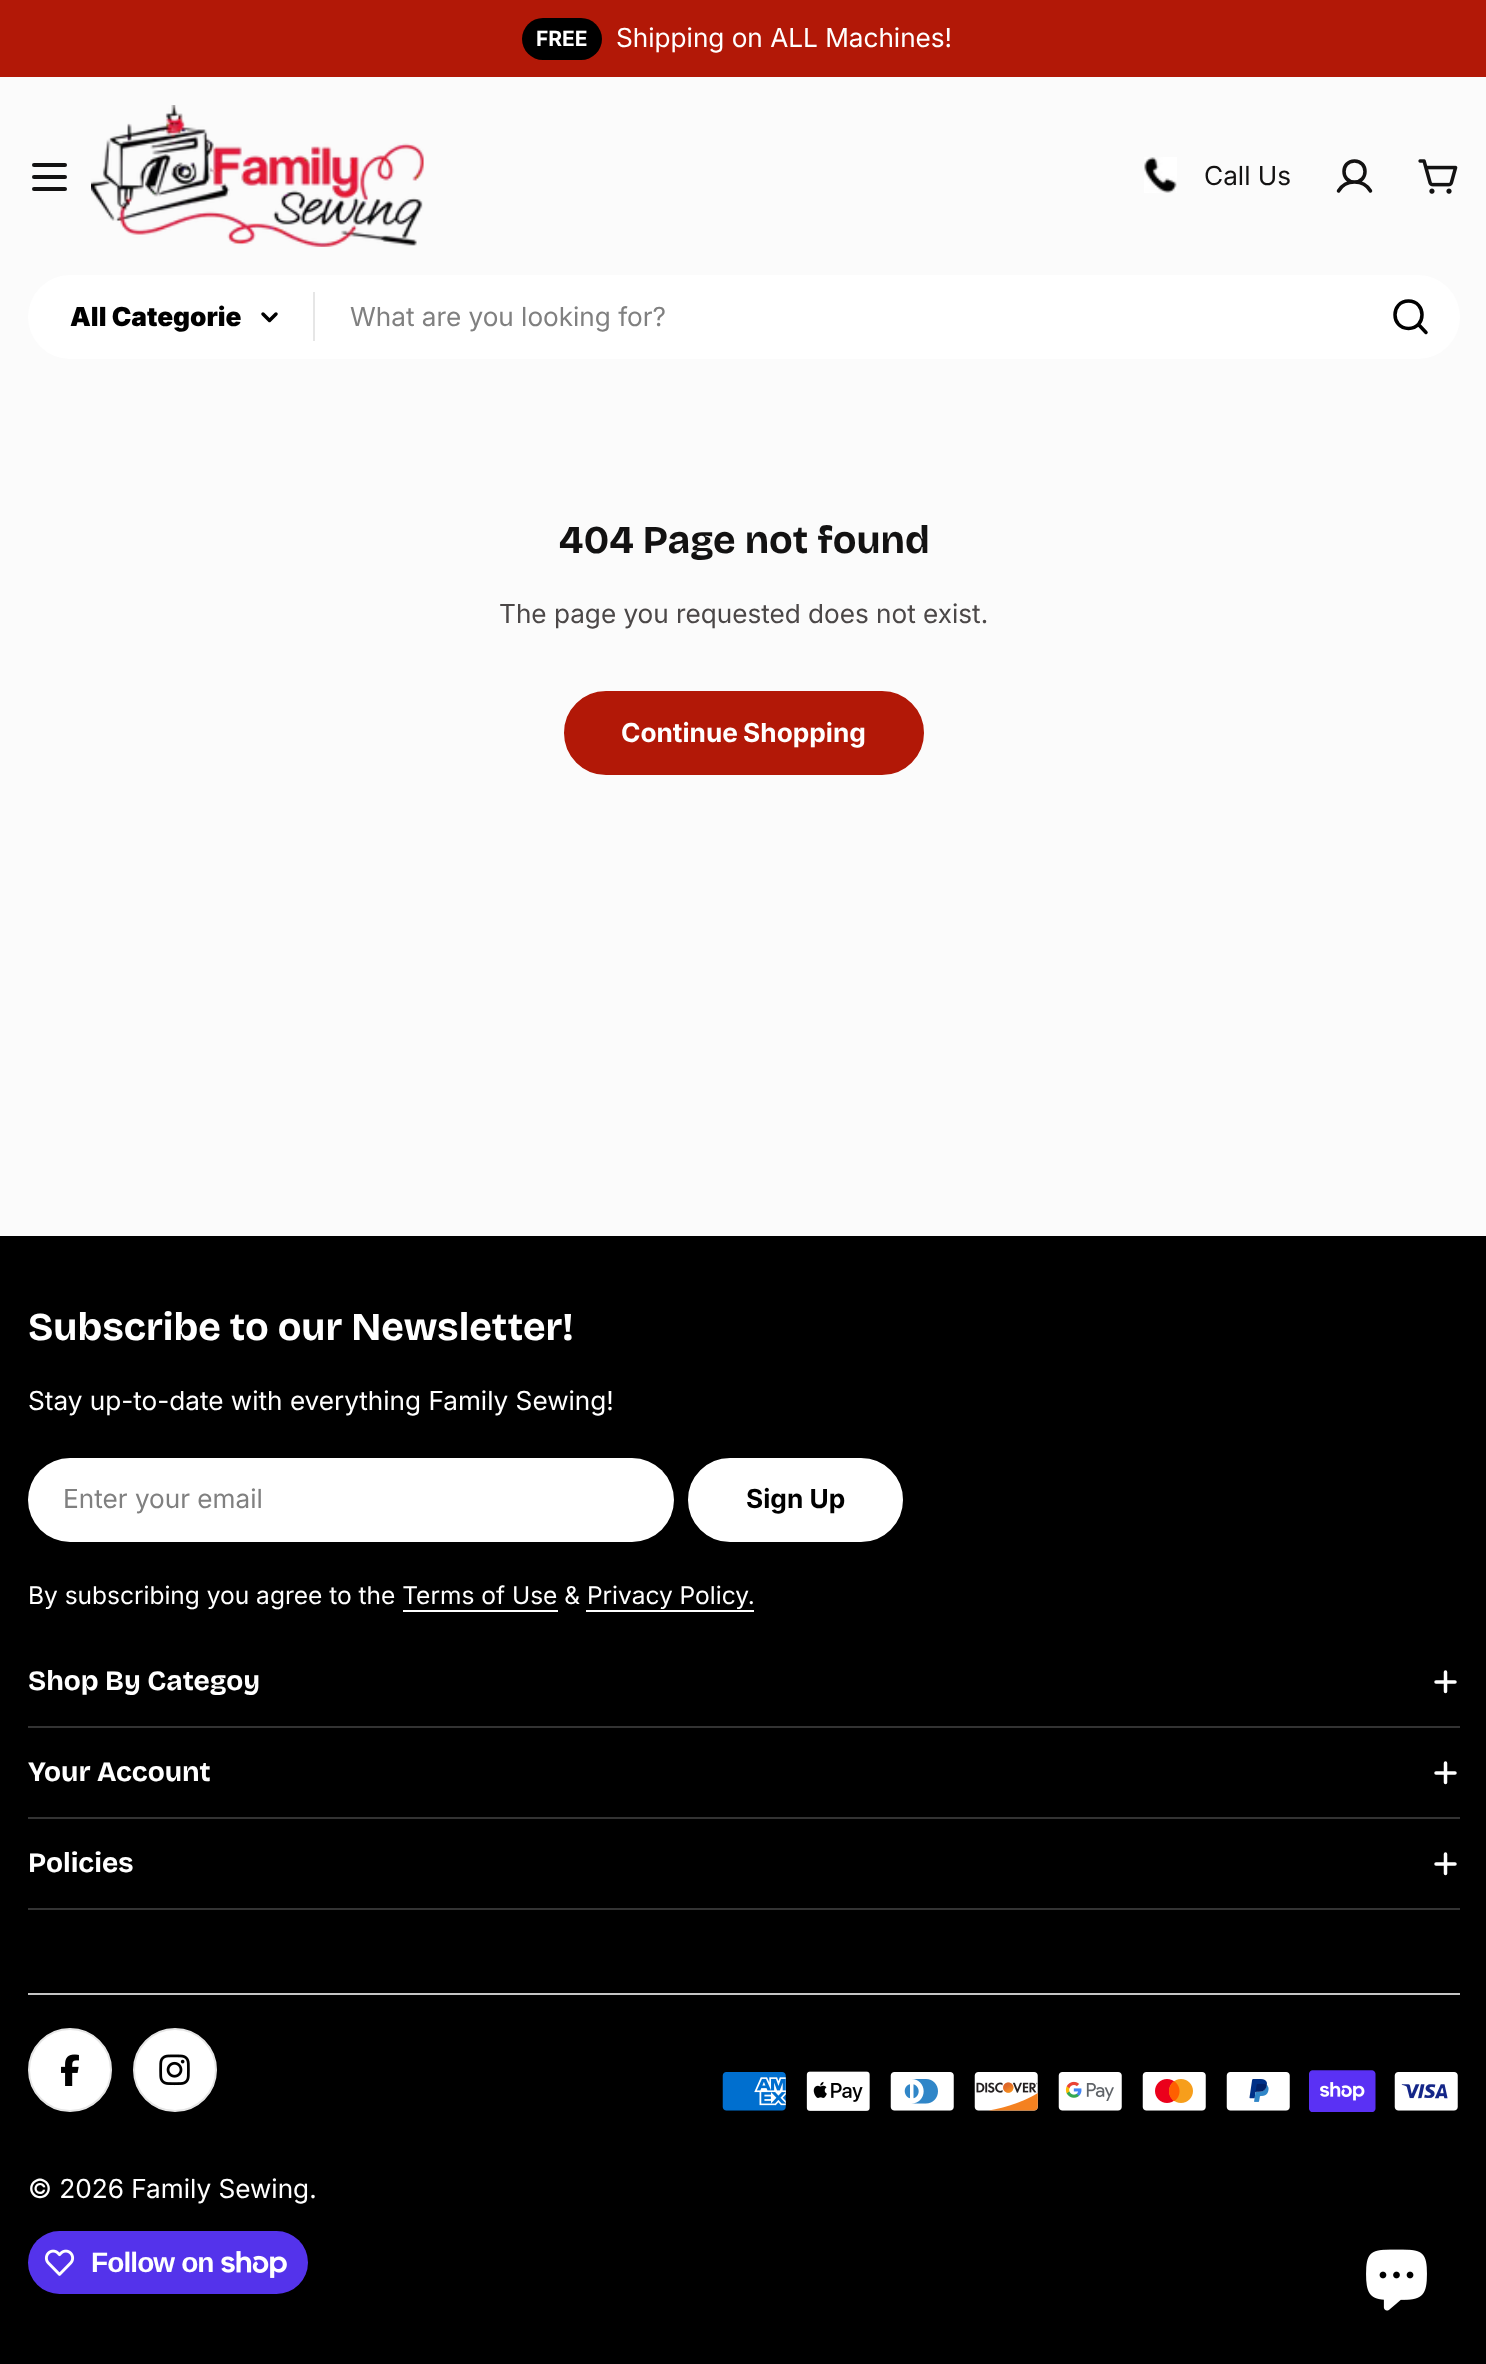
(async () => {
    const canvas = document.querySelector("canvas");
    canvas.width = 1486;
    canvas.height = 2364;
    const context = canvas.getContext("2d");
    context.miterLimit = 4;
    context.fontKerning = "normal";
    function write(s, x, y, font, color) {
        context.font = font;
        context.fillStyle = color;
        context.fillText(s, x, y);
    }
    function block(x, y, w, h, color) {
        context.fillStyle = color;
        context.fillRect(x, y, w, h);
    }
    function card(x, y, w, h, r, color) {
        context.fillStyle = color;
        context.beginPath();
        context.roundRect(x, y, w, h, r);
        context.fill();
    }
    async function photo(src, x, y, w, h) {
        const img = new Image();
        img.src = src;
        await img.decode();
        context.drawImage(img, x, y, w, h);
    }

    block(0, 0, 1486, 2364, "rgb(251, 251, 251)");
    block(0, 0, 1486, 77, "rgb(178, 24, 7)");
    card(522, 18, 80, 42, 21, "rgb(0, 0, 0)");
    write("FREE", 536, 46, "bold 21px Inter", "rgb(255, 255, 255)");
    write("Shipping on ALL Machines!", 616, 47, "26.25px Inter", "rgb(255, 255, 255)");
    card(32, 175, 35, 4, 2, "rgb(19, 18, 18)");
    card(32, 163, 35, 4, 2, "rgb(19, 18, 18)");
    card(32, 187, 35, 4, 2, "rgb(19, 18, 18)");
    await photo("media/1.png", 91, 105, 333, 142);
    await photo("media/2.png", 1144, 157, 33, 36);
    write("Call Us", 1204, 185, "26.25px Inter", "rgb(19, 18, 18)");
    context.beginPath();
    context.moveTo(1354.5, 182);
    context.bezierCurveTo(1368.5, 182, 1368.5, 161, 1354.5, 161);
    context.bezierCurveTo(1340.5, 161, 1340.5, 182, 1354.5, 182);
    context.closePath();
    context.moveTo(1338.5, 191);
    context.bezierCurveTo(1345.5, 179, 1363.5, 179, 1370.5, 191);
    context.strokeStyle = "rgb(19, 18, 18)";
    context.lineWidth = 3.5;
    context.lineCap = "round";
    context.lineJoin = "round";
    context.stroke();
    await photo("media/3.png", 1418, 159, 40, 35);
    card(28, 275, 1432, 84, 42, "rgb(255, 255, 255)");
    write("All Categorie", 70, 326, "900 26.25px Inter", "rgb(0, 0, 0)");
    context.beginPath();
    context.moveTo(276, 314);
    context.lineTo(269.5, 320.5);
    context.lineTo(263, 314);
    context.strokeStyle = "rgb(0, 0, 0)";
    context.stroke();
    block(313, 292, 2, 49, "rgb(230, 230, 230)");
    write("What are you looking for?", 350, 326, "26.25px Inter", "rgb(128, 128, 128)");
    context.beginPath();
    context.moveTo(1408.5, 328.5);
    context.bezierCurveTo(1426.5, 328.5, 1426.5, 301, 1408.5, 301);
    context.bezierCurveTo(1390.5, 301, 1390.5, 328.5, 1408.5, 328.5);
    context.closePath();
    context.moveTo(1418.5, 324.5);
    context.lineTo(1426, 332.5);
    context.stroke();
    write("404 Page not found", 559, 553, "bold 39.25px Bricolage Grotesque", "rgb(19, 18, 18)");
    write("The page you requested does not exist.", 499, 623, "26.25px Inter", "rgb(75, 71, 71)");
    context.fillStyle = "rgb(178, 24, 7)";
    context.beginPath();
    context.roundRect(565, 692, 358, 82, 41);
    context.fill();
    context.strokeStyle = "rgb(178, 24, 7)";
    context.lineWidth = 2;
    context.lineJoin = "miter";
    context.stroke();
    context.wordSpacing = "-1px";
    write("Continue Shopping", 621, 742, "bold 26.25px Inter", "rgb(255, 255, 255)");
    block(0, 1236, 1486, 1128, "rgb(0, 0, 0)");
    context.wordSpacing = "0px";
    write("Subscribe to our Newsletter!", 28, 1340, "bold 39.25px Bricolage Grotesque", "rgb(255, 255, 255)");
    write("Stay up-to-date with everything Family Sewing!", 28, 1410, "26.25px Inter", "rgb(255, 255, 255)");
    card(28, 1458, 646, 84, 42, "rgb(255, 255, 255)");
    write("Enter your email", 63, 1508, "26.25px Inter", "rgb(128, 128, 128)");
    context.fillStyle = "rgb(255, 255, 255)";
    context.beginPath();
    context.roundRect(689, 1459, 213, 82, 41);
    context.fill();
    context.strokeStyle = "rgb(255, 255, 255)";
    context.stroke();
    write("Sign Up", 746, 1508, "bold 26.25px Inter", "rgb(0, 0, 0)");
    write("By subscribing you agree to the Terms of Use & Privacy Policy.", 28, 1604, "24.5px 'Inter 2'", "rgb(255, 255, 255)");
    block(403, 1610, 155, 2, "rgb(255, 255, 255)");
    block(586, 1610, 168, 2, "rgb(255, 255, 255)");
    block(28, 1726, 1432, 2, "rgb(51, 51, 51)");
    write("Shop By Categoy", 28, 1690, "bold 28px 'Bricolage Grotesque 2'", "rgb(255, 255, 255)");
    context.beginPath();
    context.moveTo(1436, 1682);
    context.lineTo(1455, 1682);
    context.moveTo(1445.5, 1672);
    context.lineTo(1445.5, 1691.5);
    context.lineWidth = 3.5;
    context.lineJoin = "round";
    context.stroke();
    block(28, 1817, 1432, 2, "rgb(51, 51, 51)");
    write("Your Account", 28, 1781, "bold 28px 'Bricolage Grotesque 2'", "rgb(255, 255, 255)");
    context.beginPath();
    context.moveTo(1436, 1773);
    context.lineTo(1455, 1773);
    context.moveTo(1445.5, 1763);
    context.lineTo(1445.5, 1782.5);
    context.stroke();
    block(28, 1908, 1432, 2, "rgb(51, 51, 51)");
    write("Policies", 28, 1872, "bold 28px 'Bricolage Grotesque 2'", "rgb(255, 255, 255)");
    context.beginPath();
    context.moveTo(1436, 1864);
    context.lineTo(1455, 1864);
    context.moveTo(1445.5, 1854);
    context.lineTo(1445.5, 1873.5);
    context.stroke();
    block(28, 1993, 1432, 2, "rgb(196, 196, 196)");
    context.fillStyle = "rgb(255, 255, 255)";
    context.beginPath();
    context.arc(70, 2070, 41, 0, Math.PI * 2);
    context.fill();
    context.strokeStyle = "rgb(230, 230, 230)";
    context.lineWidth = 2;
    context.stroke();
    await photo("media/4.png", 61, 2054, 18, 32);
    context.beginPath();
    context.arc(175, 2070, 41, 0, Math.PI * 2);
    context.fill();
    context.stroke();
    await photo("media/5.png", 159, 2054, 31, 32);
    await photo("media/6.png", 722, 2072, 64, 39);
    await photo("media/7.png", 806, 2071, 64, 40);
    await photo("media/8.png", 890, 2072, 64, 39);
    await photo("media/9.png", 974, 2072, 64, 39);
    await photo("media/10.png", 1058, 2072, 64, 39);
    await photo("media/11.png", 1142, 2072, 64, 39);
    await photo("media/12.png", 1226, 2072, 64, 39);
    await photo("media/13.png", 1309, 2070, 67, 42);
    await photo("media/14.png", 1394, 2072, 64, 39);
    write("© 2026 Family Sewing.", 28, 2198, "26.25px Inter", "rgb(255, 255, 255)");
    card(28, 2231, 280, 63, 31.5, "rgb(84, 51, 235)");
    await photo("media/15.png", 44, 2249, 31, 27);
    context.letterSpacing = "-0.9px";
    write("Follow on", 91, 2272, "bold 28px Liberation Sans", "rgb(255, 255, 255)");
    await photo("media/16.png", 221, 2251, 66, 27);
    await photo("media/17.png", 1366, 2249, 61, 62);
})();
